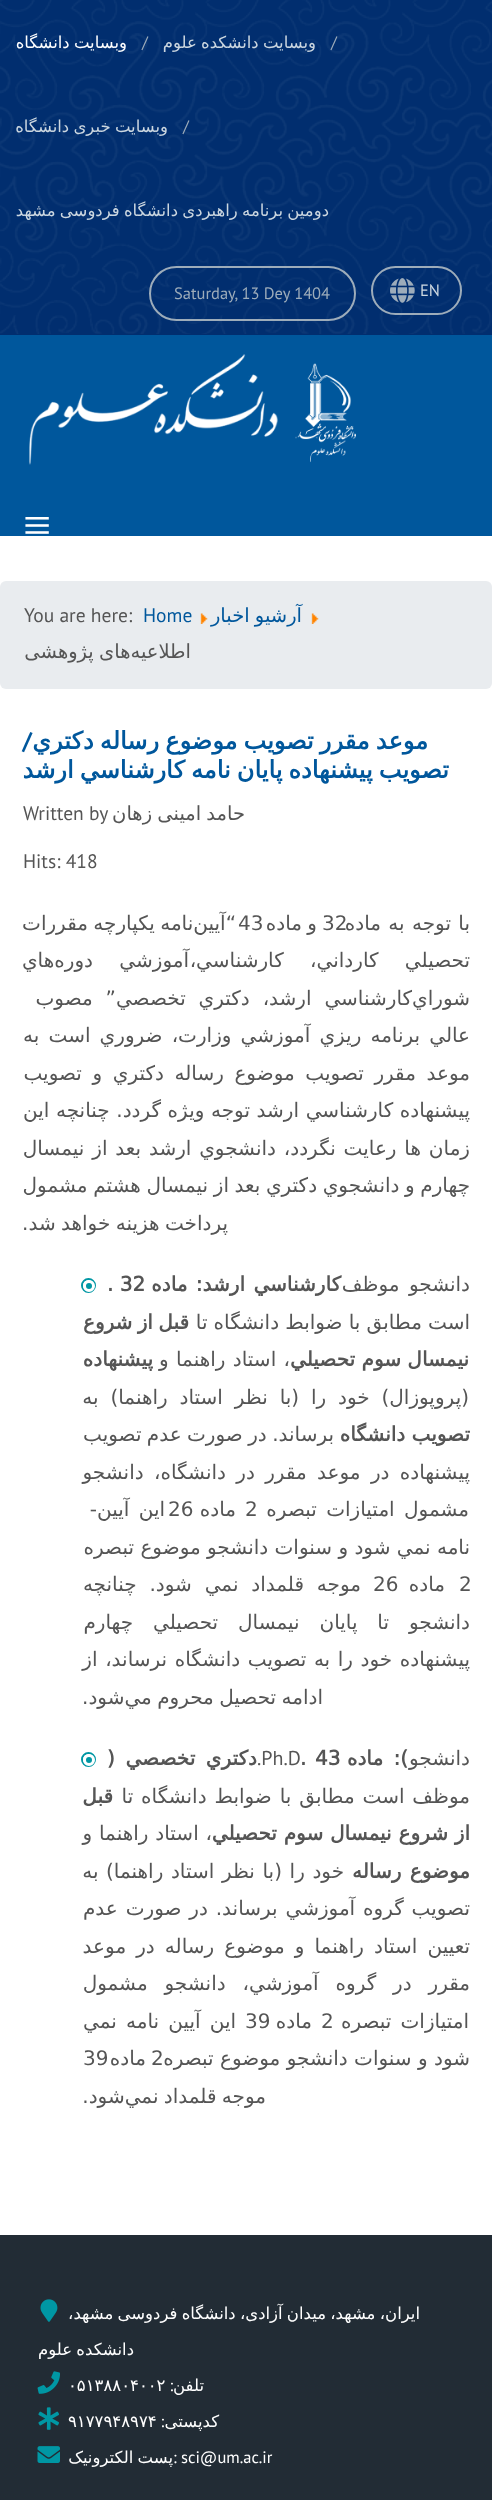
(async () => {
    const canvas = document.querySelector("canvas");
    canvas.width = 492;
    canvas.height = 2500;
    const context = canvas.getContext("2d");
    context.miterLimit = 4;
    context.fontKerning = "normal";
    function write(s, x, y, font, color) {
        context.font = font;
        context.fillStyle = color;
        context.fillText(s, x, y);
    }
    function block(x, y, w, h, color) {
        context.fillStyle = color;
        context.fillRect(x, y, w, h);
    }
    function card(x, y, w, h, r, color) {
        context.fillStyle = color;
        context.beginPath();
        context.roundRect(x, y, w, h, r);
        context.fill();
    }
    async function photo(src, x, y, w, h) {
        const img = new Image();
        img.src = src;
        await img.decode();
        context.drawImage(img, x, y, w, h);
    }

    block(0, 0, 492, 2500, "rgb(255, 255, 255)");
    block(0, 335, 492, 201, "rgb(0, 87, 156)");
    block(0, 0, 492, 335, "rgb(1, 46, 111)");
    await photo("media/1.png", 0, 0, 492, 334);
    write("/", 331, 48, "16.5px PT Sans", "rgb(157, 172, 186)");
    context.wordSpacing = "-1px";
    context.direction = "rtl";
    write("وبسایت دانشکده علوم", 316, 48, "16.5px DejaVu Sans", "rgb(204, 215, 224)");
    context.wordSpacing = "0px";
    context.direction = "ltr";
    write("/", 142, 48, "16.5px PT Sans", "rgb(157, 172, 186)");
    context.wordSpacing = "-1px";
    context.direction = "rtl";
    write("وبسایت دانشگاه", 127, 48, "16.5px DejaVu Sans", "rgb(255, 255, 255)");
    context.wordSpacing = "0px";
    context.direction = "ltr";
    write("/", 183, 132, "16.5px PT Sans", "rgb(157, 172, 186)");
    context.wordSpacing = "-1px";
    context.direction = "rtl";
    write("وبسایت خبری دانشگاه", 168, 132, "16.5px DejaVu Sans", "rgb(204, 215, 224)");
    write("دومین برنامه راهبردی دانشگاه فردوسی مشهد", 329, 216, "16.5px DejaVu Sans", "rgb(204, 215, 224)");
    context.beginPath();
    context.roundRect(372, 267, 89, 47, 23.5);
    context.strokeStyle = "rgb(157, 172, 186)";
    context.lineWidth = 2;
    context.stroke();
    context.wordSpacing = "0px";
    context.direction = "ltr";
    write("EN", 420, 296, "16.5px PT Sans", "rgb(204, 215, 224)");
    await photo("media/2.png", 390, 278, 25, 25);
    context.beginPath();
    context.roundRect(150, 267, 205, 53, 26.5);
    context.stroke();
    write("Saturday, 13 Dey 1404", 174, 299, "16.5px PT Sans", "rgb(157, 172, 186)");
    await photo("media/3.png", 29, 354, 327, 111);
    write("≡", 23, 542, "50px Liberation Serif", "rgb(255, 255, 255)");
    card(0, 581, 492, 108, 6, "rgb(233, 236, 239)");
    await photo("media/4.png", 311, 613, 8, 11);
    context.wordSpacing = "-1px";
    context.direction = "rtl";
    write("آرشیو اخبار", 302, 622, "19.5px DejaVu Sans", "rgb(0, 87, 156)");
    await photo("media/4.png", 200, 613, 8, 11);
    context.wordSpacing = "0px";
    context.direction = "ltr";
    write("Home", 143, 622, "19.5px PT Sans", "rgb(0, 87, 156)");
    write("You are here:", 24, 622, "19.5px PT Sans", "rgb(85, 85, 85)");
    context.wordSpacing = "-1px";
    context.direction = "rtl";
    write("اطلاعیه‌های پژوهشی", 191, 658, "19.5px DejaVu Sans", "rgb(85, 85, 85)");
    context.wordSpacing = "-1.5px";
    write("موعد مقرر تصويب موضوع رساله دكتري", 428, 749, "bold 24px DejaVu Sans", "rgb(0, 87, 156)");
    context.wordSpacing = "0px";
    write("/", 32, 749, "bold 24px PT Sans", "rgb(0, 87, 156)");
    context.wordSpacing = "-1.5px";
    write("تصويب پيشنهاده پايان نامه كارشناسي ارشد", 449, 778, "bold 24px DejaVu Sans", "rgb(0, 87, 156)");
    context.wordSpacing = "-1px";
    write("حامد امینی زهان", 245, 820, "19.5px DejaVu Sans", "rgb(85, 85, 85)");
    context.wordSpacing = "0px";
    context.direction = "ltr";
    write("Written by", 23, 820, "19.5px PT Sans", "rgb(85, 85, 85)");
    write("Hits: 418", 23, 868, "19.5px PT Sans", "rgb(85, 85, 85)");
    write("32", 322, 930, "20px DejaVu Sans", "rgb(85, 85, 85)");
    context.wordSpacing = "1px";
    context.direction = "rtl";
    write("با توجه به ماده", 470, 930, "20px DejaVu Sans", "rgb(85, 85, 85)");
    context.wordSpacing = "-1px";
    write("و ماده", 317, 930, "20px DejaVu Sans", "rgb(85, 85, 85)");
    context.wordSpacing = "0px";
    context.direction = "ltr";
    write("43", 238, 930, "20px DejaVu Sans", "rgb(85, 85, 85)");
    context.wordSpacing = "-1px";
    context.direction = "rtl";
    write("“آيين‌نامه يكپارچه مقررات", 236, 930, "20px DejaVu Sans", "rgb(85, 85, 85)");
    context.wordSpacing = "20px";
    write("تحصيلي كارداني، كارشناسي،", 470, 967, "20px DejaVu Sans", "rgb(85, 85, 85)");
    write("آموزشي دوره‌هاي", 189, 967, "20px DejaVu Sans", "rgb(85, 85, 85)");
    context.wordSpacing = "0px";
    write("شوراي", 470, 1005, "20px DejaVu Sans", "rgb(85, 85, 85)");
    context.wordSpacing = "6.5px";
    write("كارشناسي ارشد، دكتري تخصصي” مصوب", 412, 1005, "20px DejaVu Sans", "rgb(85, 85, 85)");
    context.wordSpacing = "2.75px";
    write("عالي برنامه ريزي آموزشي وزارت، ضروري است به", 470, 1042, "20px DejaVu Sans", "rgb(85, 85, 85)");
    context.wordSpacing = "4.25px";
    write("موعد مقرر تصويب موضوع رساله دكتري و تصويب", 470, 1080, "20px DejaVu Sans", "rgb(85, 85, 85)");
    context.wordSpacing = "0.25px";
    write("پيشنهاده كارشناسي ارشد توجه ويژه گردد. چنانچه اين", 470, 1117, "20px DejaVu Sans", "rgb(85, 85, 85)");
    context.wordSpacing = "1.5px";
    write("زمان ها رعايت نگردد، دانشجوي ارشد بعد از نيمسال", 470, 1155, "20px DejaVu Sans", "rgb(85, 85, 85)");
    context.wordSpacing = "-0.75px";
    write("چهارم و دانشجوي دكتري بعد از نيمسال هشتم مشمول", 470, 1192, "20px DejaVu Sans", "rgb(85, 85, 85)");
    context.wordSpacing = "-1px";
    write("پرداخت هزينه خواهد شد.", 228, 1230, "20px DejaVu Sans", "rgb(85, 85, 85)");
    context.wordSpacing = "3px";
    write("دانشجو موظف", 470, 1291, "20px DejaVu Sans", "rgb(85, 85, 85)");
    context.wordSpacing = "2px";
    write("كارشناسي ارشد: ماده", 341, 1291, "bold 20px DejaVu Sans", "rgb(85, 85, 85)");
    context.wordSpacing = "0px";
    context.direction = "ltr";
    write(". 32", 107, 1291, "bold 20px DejaVu Sans", "rgb(85, 85, 85)");
    context.beginPath();
    context.arc(88.5, 1285.5, 6.5, 0, Math.PI * 2);
    context.strokeStyle = "rgb(0, 151, 164)";
    context.stroke();
    context.fillStyle = "rgb(0, 151, 164)";
    context.beginPath();
    context.arc(89, 1286, 4.5, 0, Math.PI * 2);
    context.fill();
    context.strokeStyle = "rgb(255, 255, 255)";
    context.lineWidth = 3;
    context.stroke();
    context.wordSpacing = "-0.25px";
    context.direction = "rtl";
    write("است مطابق با ضوابط دانشگاه تا", 470, 1329, "20px DejaVu Sans", "rgb(85, 85, 85)");
    context.wordSpacing = "-1px";
    write("قبل از شروع", 189, 1329, "bold 20px DejaVu Sans", "rgb(85, 85, 85)");
    context.wordSpacing = "0px";
    write("نيمسال سوم تحصيلي", 469, 1366, "bold 20px DejaVu Sans", "rgb(85, 85, 85)");
    context.wordSpacing = "1px";
    write("، استاد راهنما و", 290, 1366, "20px DejaVu Sans", "rgb(85, 85, 85)");
    context.wordSpacing = "0px";
    write("پيشنهاده", 153, 1366, "bold 20px DejaVu Sans", "rgb(85, 85, 85)");
    context.wordSpacing = "5.5px";
    write("(پروپوزال) خود را (با نظر استاد راهنما) به", 469, 1404, "20px DejaVu Sans", "rgb(85, 85, 85)");
    context.wordSpacing = "0px";
    write("تصويب دانشگاه", 470, 1441, "bold 20px DejaVu Sans", "rgb(85, 85, 85)");
    context.wordSpacing = "-1px";
    write("برساند. در صورت عدم تصويب", 334, 1441, "20px DejaVu Sans", "rgb(85, 85, 85)");
    context.wordSpacing = "4px";
    write("پيشنهاده در موعد مقرر در دانشگاه، دانشجو", 470, 1479, "20px DejaVu Sans", "rgb(85, 85, 85)");
    context.wordSpacing = "3px";
    write("مشمول امتيازات تبصره", 469, 1516, "20px DejaVu Sans", "rgb(85, 85, 85)");
    context.wordSpacing = "0px";
    context.direction = "ltr";
    write("2", 245, 1516, "20px DejaVu Sans", "rgb(85, 85, 85)");
    context.direction = "rtl";
    write("ماده", 236, 1516, "20px DejaVu Sans", "rgb(85, 85, 85)");
    context.direction = "ltr";
    write("26", 168, 1516, "20px DejaVu Sans", "rgb(85, 85, 85)");
    context.wordSpacing = "3px";
    context.direction = "rtl";
    write("اين آيين-", 165, 1516, "20px DejaVu Sans", "rgb(85, 85, 85)");
    context.wordSpacing = "0px";
    write("نامه نمي شود و سنوات دانشجو موضوع تبصره", 470, 1554, "20px DejaVu Sans", "rgb(85, 85, 85)");
    context.direction = "ltr";
    write("2", 459, 1591, "20px DejaVu Sans", "rgb(85, 85, 85)");
    context.direction = "rtl";
    write("ماده", 445, 1591, "20px DejaVu Sans", "rgb(85, 85, 85)");
    context.direction = "ltr";
    write("26", 373, 1591, "20px DejaVu Sans", "rgb(85, 85, 85)");
    context.wordSpacing = "6.5px";
    context.direction = "rtl";
    write("موجه قلمداد نمي شود. چنانچه", 361, 1591, "20px DejaVu Sans", "rgb(85, 85, 85)");
    context.wordSpacing = "13.5px";
    write("دانشجو تا پايان نيمسال تحصيلي چهارم", 470, 1629, "20px DejaVu Sans", "rgb(85, 85, 85)");
    context.wordSpacing = "1.25px";
    write("پيشنهاده خود را به تصويب دانشگاه نرساند، از", 470, 1666, "20px DejaVu Sans", "rgb(85, 85, 85)");
    context.wordSpacing = "-1px";
    write("ادامه تحصيل محروم مي‌شود.", 323, 1704, "20px DejaVu Sans", "rgb(85, 85, 85)");
    context.wordSpacing = "0px";
    write("دانشجو", 470, 1765, "20px DejaVu Sans", "rgb(85, 85, 85)");
    context.wordSpacing = "4px";
    write("): ماده", 408, 1765, "bold 20px DejaVu Sans", "rgb(85, 85, 85)");
    context.wordSpacing = "0px";
    context.direction = "ltr";
    write("43", 315, 1765, "bold 20px DejaVu Sans", "rgb(85, 85, 85)");
    write(".", 300, 1765, "bold 20px DejaVu Sans", "rgb(85, 85, 85)");
    write(".Ph.D", 257, 1765, "20px PT Sans", "rgb(85, 85, 85)");
    context.wordSpacing = "4.25px";
    context.direction = "rtl";
    write("دكتري تخصصي (", 257, 1765, "bold 20px DejaVu Sans", "rgb(85, 85, 85)");
    context.beginPath();
    context.arc(88.5, 1759.5, 6.5, 0, Math.PI * 2);
    context.strokeStyle = "rgb(0, 151, 164)";
    context.lineWidth = 2;
    context.stroke();
    context.fillStyle = "rgb(0, 151, 164)";
    context.beginPath();
    context.arc(89, 1760, 4.5, 0, Math.PI * 2);
    context.fill();
    context.strokeStyle = "rgb(255, 255, 255)";
    context.lineWidth = 3;
    context.stroke();
    context.wordSpacing = "1.5px";
    write("موظف است مطابق با ضوابط دانشگاه تا", 470, 1803, "20px DejaVu Sans", "rgb(85, 85, 85)");
    context.wordSpacing = "0px";
    write("قبل", 113, 1803, "bold 20px DejaVu Sans", "rgb(85, 85, 85)");
    context.wordSpacing = "0.5px";
    write("از شروع نيمسال سوم تحصيلي", 470, 1840, "bold 20px DejaVu Sans", "rgb(85, 85, 85)");
    write("، استاد راهنما و", 212, 1840, "20px DejaVu Sans", "rgb(85, 85, 85)");
    context.wordSpacing = "2px";
    write("موضوع رساله", 470, 1878, "bold 20px DejaVu Sans", "rgb(85, 85, 85)");
    context.wordSpacing = "1.25px";
    write("خود را (با نظر استاد راهنما) به", 344, 1878, "20px DejaVu Sans", "rgb(85, 85, 85)");
    context.wordSpacing = "1.5px";
    write("تصويب گروه آموزشي برساند. در صورت عدم", 470, 1915, "20px DejaVu Sans", "rgb(85, 85, 85)");
    context.wordSpacing = "3.75px";
    write("تعيين استاد راهنما و موضوع رساله در موعد", 470, 1953, "20px DejaVu Sans", "rgb(85, 85, 85)");
    context.wordSpacing = "10.5px";
    write("مقرر در گروه آموزشي، دانشجو مشمول", 470, 1990, "20px DejaVu Sans", "rgb(85, 85, 85)");
    context.wordSpacing = "2.75px";
    write("امتيازات تبصره", 469, 2028, "20px DejaVu Sans", "rgb(85, 85, 85)");
    context.wordSpacing = "0px";
    context.direction = "ltr";
    write("2", 321, 2028, "20px DejaVu Sans", "rgb(85, 85, 85)");
    context.direction = "rtl";
    write("ماده", 312, 2028, "20px DejaVu Sans", "rgb(85, 85, 85)");
    context.direction = "ltr";
    write("39", 245, 2028, "20px DejaVu Sans", "rgb(85, 85, 85)");
    context.wordSpacing = "2.75px";
    context.direction = "rtl";
    write("اين آيين نامه نمي", 236, 2028, "20px DejaVu Sans", "rgb(85, 85, 85)");
    context.wordSpacing = "0px";
    write("شود و سنوات دانشجو موضوع تبصره", 470, 2065, "20px DejaVu Sans", "rgb(85, 85, 85)");
    context.direction = "ltr";
    write("2", 151, 2065, "20px DejaVu Sans", "rgb(85, 85, 85)");
    context.direction = "rtl";
    write("ماده", 146, 2065, "20px DejaVu Sans", "rgb(85, 85, 85)");
    context.direction = "ltr";
    write("39", 83, 2065, "20px DejaVu Sans", "rgb(85, 85, 85)");
    context.wordSpacing = "-1px";
    context.direction = "rtl";
    write("موجه قلمداد نمي‌شود.", 266, 2103, "20px DejaVu Sans", "rgb(85, 85, 85)");
    block(0, 2235, 492, 265, "rgb(34, 44, 53)");
    write("ایران، مشهد، میدان آزادی، دانشگاه فردوسی مشهد،", 420, 2319, "16.5px DejaVu Sans", "rgb(255, 255, 255)");
    await photo("media/5.png", 40, 2299, 18, 23);
    write("دانشکده علوم", 134, 2355, "16.5px DejaVu Sans", "rgb(255, 255, 255)");
    context.wordSpacing = "0px";
    write("تلفن", 204, 2391, "16.5px DejaVu Sans", "rgb(255, 255, 255)");
    write(":", 173, 2391, "16.5px PT Sans", "rgb(255, 255, 255)");
    context.direction = "ltr";
    write("۰۵۱۳۸۸۰۴۰۰۲", 68, 2391, "16.5px DejaVu Sans", "rgb(255, 255, 255)");
    await photo("media/6.png", 37, 2371, 23, 23);
    context.direction = "rtl";
    write("كدپستی", 219, 2427, "16.5px DejaVu Sans", "rgb(255, 255, 255)");
    write(":", 164, 2427, "16.5px PT Sans", "rgb(255, 255, 255)");
    context.direction = "ltr";
    write("۹۱۷۷۹۴۸۹۷۴", 68, 2427, "16.5px DejaVu Sans", "rgb(255, 255, 255)");
    await photo("media/7.png", 38, 2407, 21, 23);
    write(": sci@um.ac.ir", 173, 2463, "16.5px PT Sans", "rgb(255, 255, 255)");
    context.wordSpacing = "-1px";
    context.direction = "rtl";
    write("پست الکترونیک", 173, 2463, "16.5px DejaVu Sans", "rgb(255, 255, 255)");
    await photo("media/8.png", 37, 2446, 23, 17);
})();
